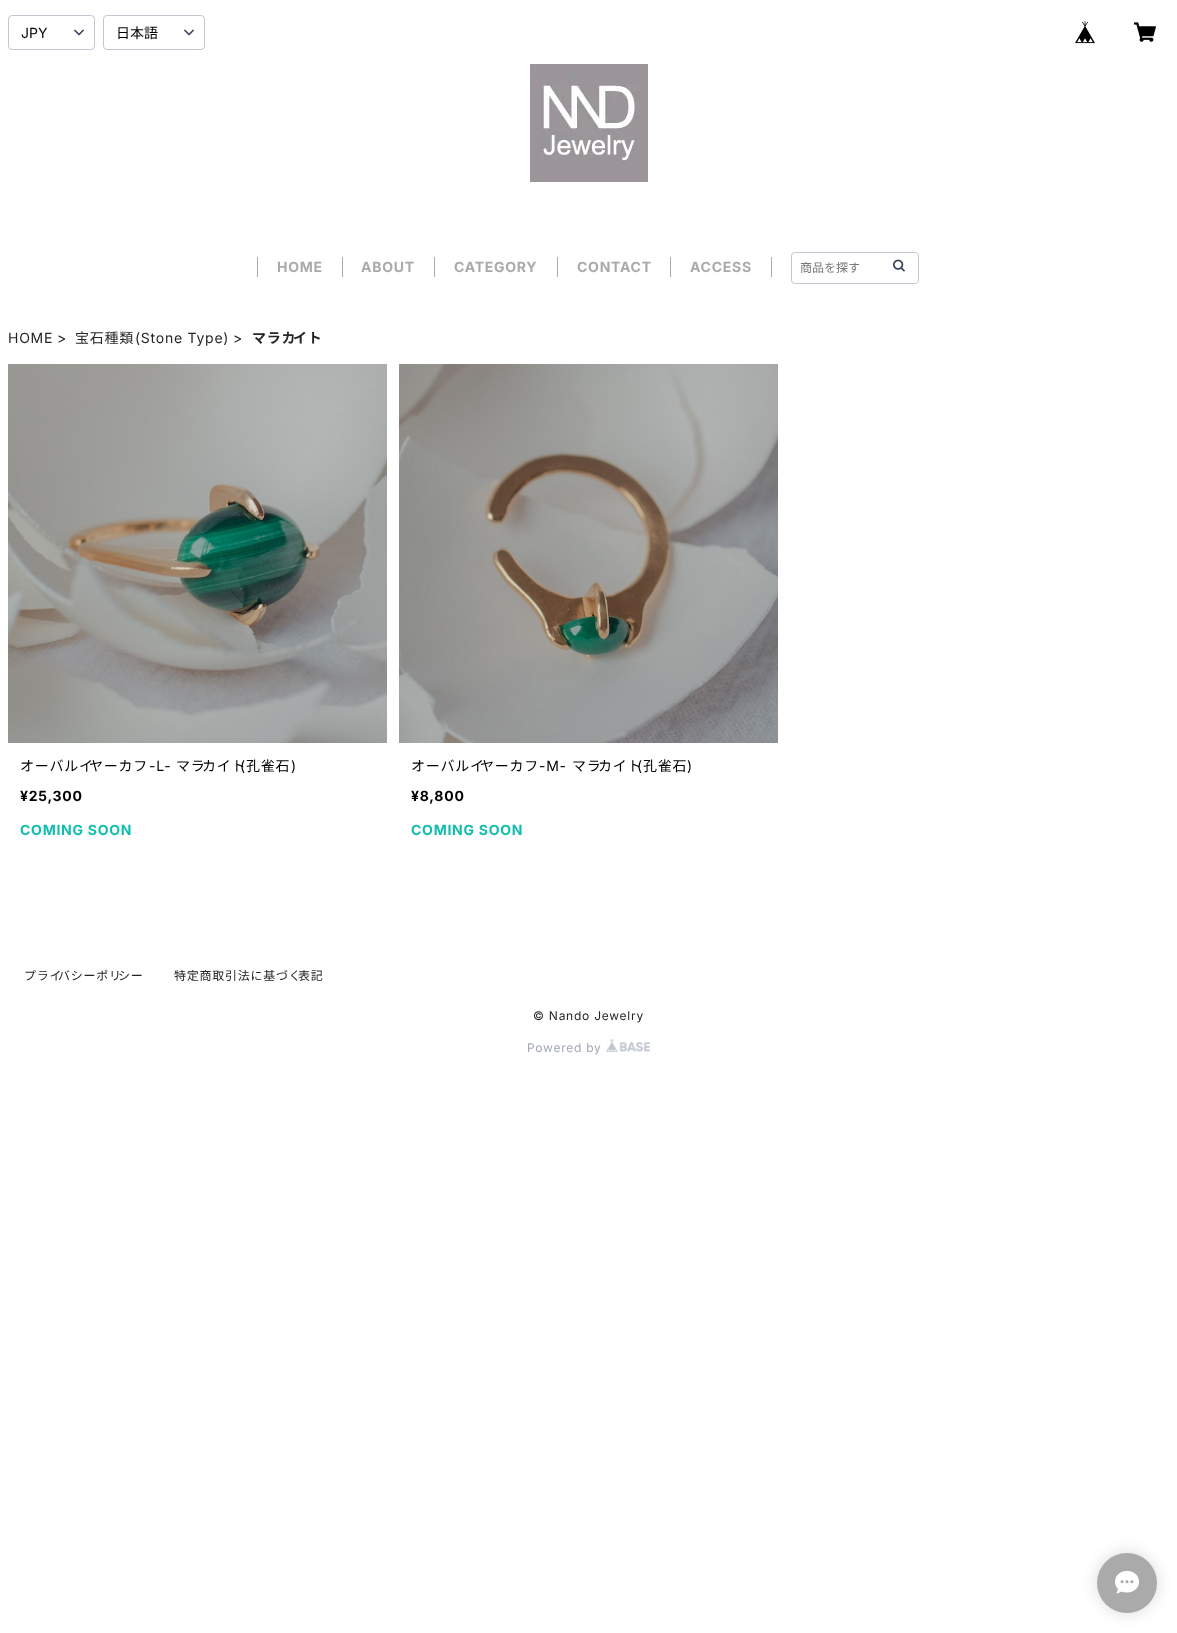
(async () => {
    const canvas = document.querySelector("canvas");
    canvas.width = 1177;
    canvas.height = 1633;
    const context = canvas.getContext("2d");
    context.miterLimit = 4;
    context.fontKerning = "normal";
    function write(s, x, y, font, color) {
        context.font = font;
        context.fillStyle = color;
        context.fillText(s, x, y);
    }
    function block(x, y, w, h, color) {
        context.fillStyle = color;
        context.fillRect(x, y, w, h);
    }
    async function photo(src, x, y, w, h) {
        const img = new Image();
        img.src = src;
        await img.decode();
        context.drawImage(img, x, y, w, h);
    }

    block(0, 0, 1177, 1633, "rgb(255, 255, 255)");
    context.beginPath();
    context.roundRect(8.5, 15.5, 86, 34, 3.5);
    context.strokeStyle = "rgb(194, 200, 210)";
    context.stroke();
    write("JPY", 21, 38, "14px Inter", "rgb(0, 0, 0)");
    await photo("media/1.png", 74, 29, 10, 7);
    context.beginPath();
    context.roundRect(103.5, 15.5, 101, 34, 3.5);
    context.stroke();
    write("日本語", 116, 38, "14px Noto Sans JP", "rgb(0, 0, 0)");
    await photo("media/1.png", 184, 29, 10, 7);
    await photo("media/2.png", 1075, 21, 20, 23);
    await photo("media/3.png", 1134, 22, 22, 20);
    await photo("media/4.png", 530, 64, 118, 118);
    block(342, 257, 1, 20, "rgb(170, 170, 170)");
    block(257, 257, 1, 20, "rgb(170, 170, 170)");
    context.letterSpacing = "0.75px";
    write("HOME", 277, 272, "bold 14px Inter", "rgb(170, 170, 170)");
    block(434, 257, 1, 20, "rgb(170, 170, 170)");
    write("ABOUT", 361, 272, "bold 14px Inter", "rgb(170, 170, 170)");
    block(557, 257, 1, 20, "rgb(170, 170, 170)");
    write("CATEGORY", 454, 272, "bold 14px Inter", "rgb(170, 170, 170)");
    block(670, 257, 1, 20, "rgb(170, 170, 170)");
    write("CONTACT", 577, 272, "bold 14px Inter", "rgb(170, 170, 170)");
    block(771, 257, 1, 20, "rgb(170, 170, 170)");
    write("ACCESS", 690, 272, "bold 14px Inter", "rgb(170, 170, 170)");
    context.beginPath();
    context.roundRect(791.5, 252.5, 127, 31, 3.5);
    context.stroke();
    context.letterSpacing = "0px";
    write("商品を探す", 800, 272, "12px Noto Sans JP", "rgb(117, 117, 117)");
    await photo("media/5.png", 893, 259, 12, 13);
    context.letterSpacing = "0.75px";
    write("HOME", 8, 343, "14px Inter", "rgb(37, 37, 37)");
    write(">", 57, 343, "14px Inter", "rgb(37, 37, 37)");
    write("宝石種類", 75, 343, "14px Noto Sans JP", "rgb(37, 37, 37)");
    write("(Stone Type)", 135, 343, "14px Inter", "rgb(37, 37, 37)");
    write(">", 233, 343, "14px Inter", "rgb(37, 37, 37)");
    write("マラカ", 252, 343, "bold 14px Noto Sans JP", "rgb(37, 37, 37)");
    write("イト", 293, 343, "bold 14px Noto Sans JP", "rgb(37, 37, 37)");
    await photo("media/6.png", 8, 364, 379, 379);
    write("オーバルイ", 20, 771, "14px Noto Sans JP", "rgb(0, 0, 0)");
    write("ヤーカフ", 89, 771, "14px Noto Sans JP", "rgb(0, 0, 0)");
    write("-L-", 149, 771, "14px Inter", "rgb(0, 0, 0)");
    write("マラ", 176, 771, "14px Noto Sans JP", "rgb(0, 0, 0)");
    write("カイト", 202, 771, "14px Noto Sans JP", "rgb(0, 0, 0)");
    write("(", 240, 771, "14px Inter", "rgb(0, 0, 0)");
    write("孔雀石", 246, 771, "14px Noto Sans JP", "rgb(0, 0, 0)");
    write(")", 291, 771, "14px Inter", "rgb(0, 0, 0)");
    write("¥25,300", 20, 801, "bold 14px Inter", "rgb(0, 0, 0)");
    write("COMING SOON", 20, 835, "bold 14px Inter", "rgb(17, 190, 174)");
    await photo("media/7.png", 399, 364, 379, 379);
    write("オーバルイ", 411, 771, "14px Noto Sans JP", "rgb(0, 0, 0)");
    write("ヤーカフ", 480, 771, "14px Noto Sans JP", "rgb(0, 0, 0)");
    write("-M-", 539, 771, "14px Inter", "rgb(0, 0, 0)");
    write("マラ", 572, 771, "14px Noto Sans JP", "rgb(0, 0, 0)");
    write("カイト", 598, 771, "14px Noto Sans JP", "rgb(0, 0, 0)");
    write("(", 637, 771, "14px Inter", "rgb(0, 0, 0)");
    write("孔雀石", 643, 771, "14px Noto Sans JP", "rgb(0, 0, 0)");
    write(")", 687, 771, "14px Inter", "rgb(0, 0, 0)");
    write("¥8,800", 411, 801, "bold 14px Inter", "rgb(0, 0, 0)");
    write("COMING SOON", 411, 835, "bold 14px Inter", "rgb(17, 190, 174)");
    write("プライ", 24, 980, "12px Noto Sans JP", "rgb(37, 37, 37)");
    write("バシーポリ", 58, 980, "12px Noto Sans JP", "rgb(37, 37, 37)");
    write("シー", 118, 980, "12px Noto Sans JP", "rgb(37, 37, 37)");
    write("特定商取引法に基づく", 174, 980, "12px Noto Sans JP", "rgb(37, 37, 37)");
    write("表記", 298, 980, "12px Noto Sans JP", "rgb(37, 37, 37)");
    write("© Nando Jewelry", 533, 1020, "12px Inter", "rgb(37, 37, 37)");
    write("Powered by", 527, 1052, "12px Inter", "rgb(160, 167, 180)");
    await photo("media/8.png", 606, 1039, 44, 13);
    context.fillStyle = "rgba(51, 66, 88, 0.2)";
    context.filter = "blur(7.5px)";
    context.beginPath();
    context.roundRect(1097, 1553, 60, 60, 30);
    context.fill();
    context.filter = "none";
    context.fillStyle = "rgb(170, 170, 170)";
    context.beginPath();
    context.arc(1127, 1583, 30, 0, Math.PI * 2);
    context.fill();
    await photo("media/9.png", 1115, 1570, 24, 24);
})();
